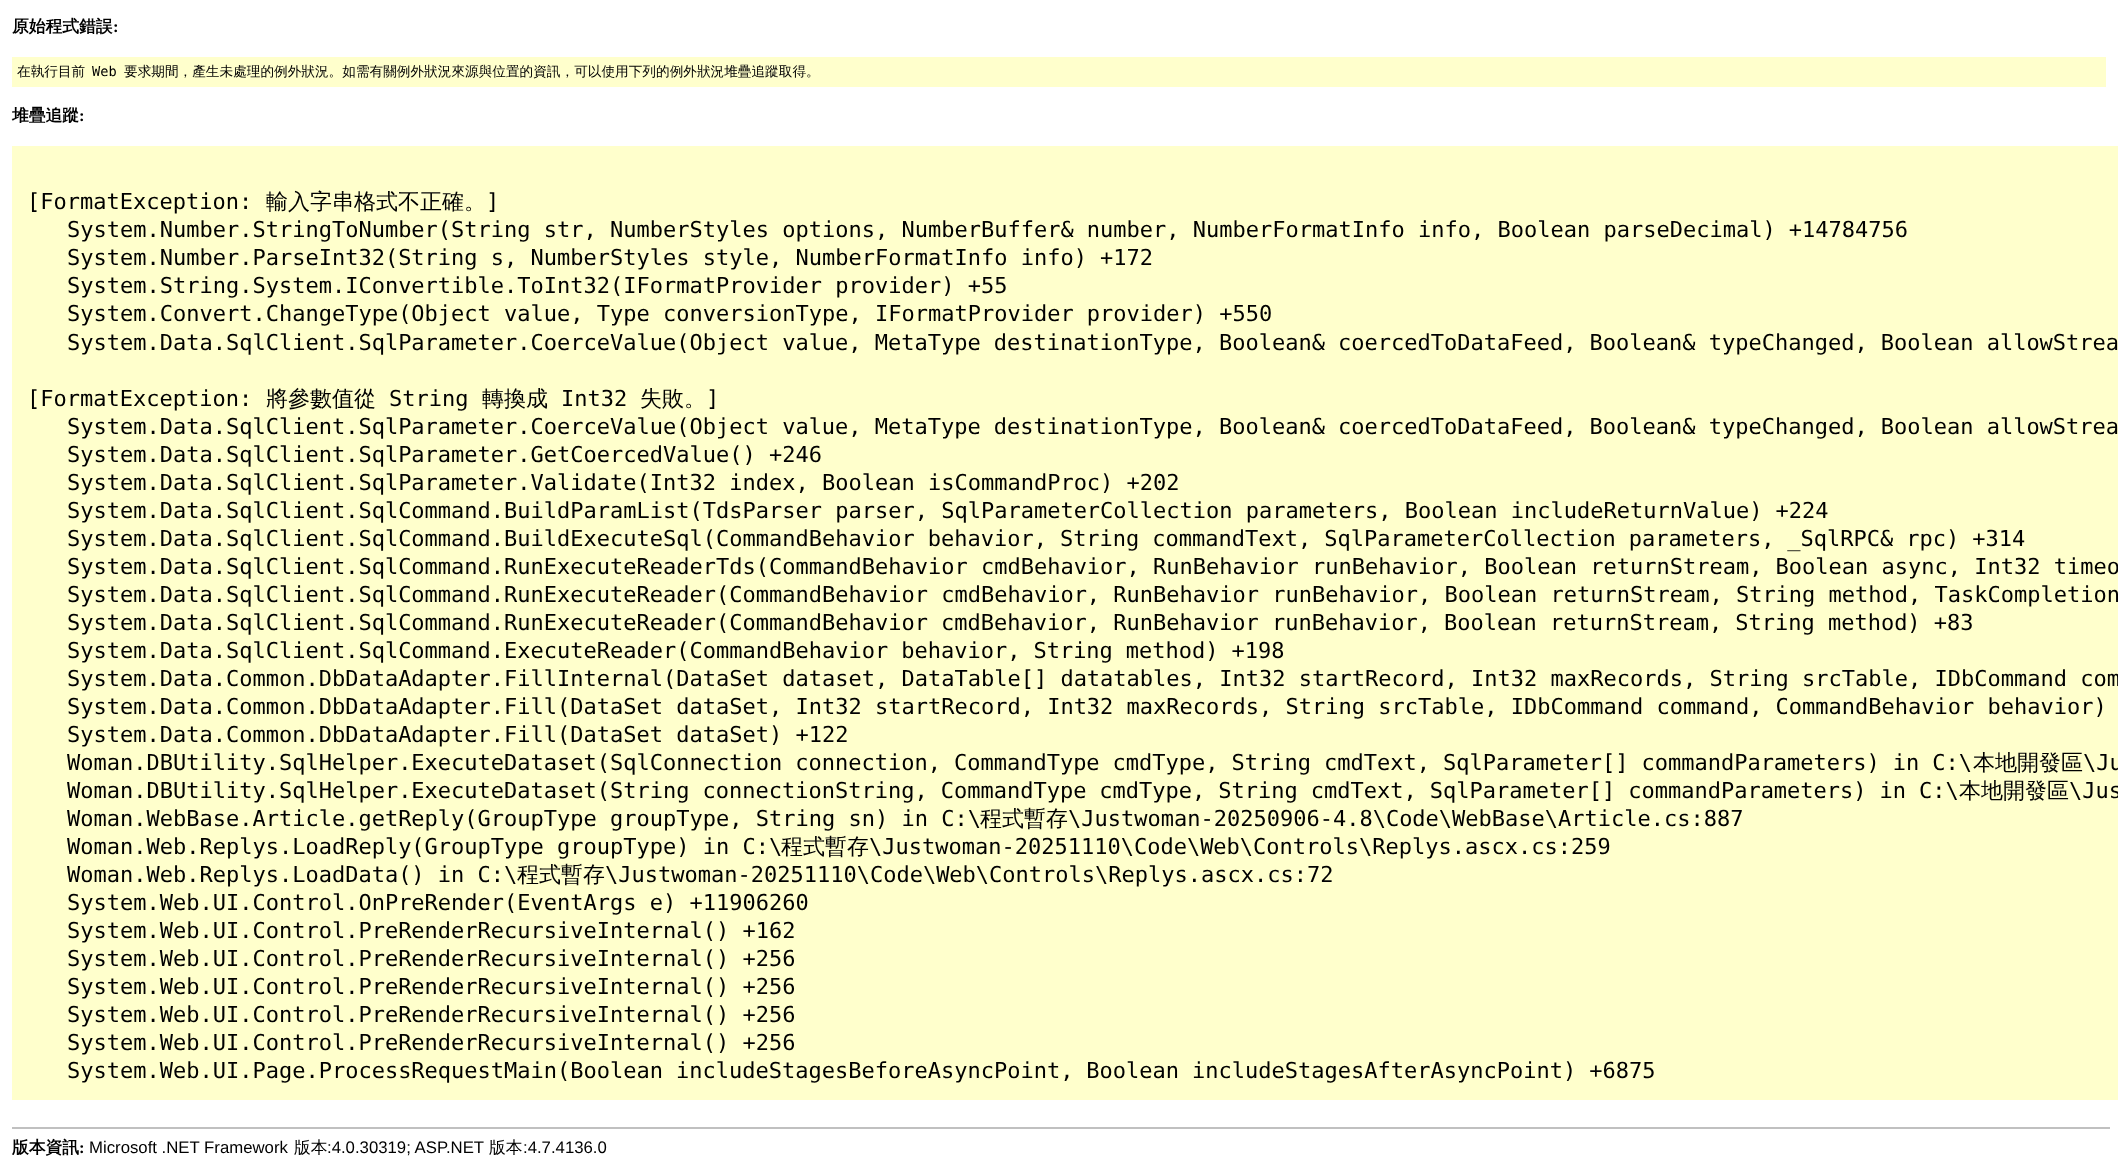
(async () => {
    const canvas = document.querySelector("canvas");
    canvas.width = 2118;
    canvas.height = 1171;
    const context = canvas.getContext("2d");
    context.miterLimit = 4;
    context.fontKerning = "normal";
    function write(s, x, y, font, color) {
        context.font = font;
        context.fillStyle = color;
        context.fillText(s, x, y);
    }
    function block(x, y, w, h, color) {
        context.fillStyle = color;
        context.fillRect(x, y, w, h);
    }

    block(0, 0, 2118, 1171, "rgb(255, 255, 255)");
    write("原始程式錯誤", 12, 32, "bold 16.75px WenQuanYi Zen Hei", "rgb(0, 0, 0)");
    write(":", 113, 32, "bold 16.75px Liberation Serif", "rgb(0, 0, 0)");
    block(12, 57, 2094, 30, "rgb(255, 255, 204)");
    write("在執行目前", 17, 76, "500 13.65px WenQuanYi Zen Hei", "rgb(0, 0, 0)");
    write("Web", 92, 76, "13.65px DejaVu Sans Mono", "rgb(0, 0, 0)");
    write("要求期間，產生未處理的例外狀況。如需有關例外狀況來源與位置的資訊，可以使用下列的例外狀況堆疊追蹤取得。", 124, 76, "500 13.65px WenQuanYi Zen Hei", "rgb(0, 0, 0)");
    write("堆疊追蹤", 12, 121, "bold 16.75px WenQuanYi Zen Hei", "rgb(0, 0, 0)");
    write(":", 79, 121, "bold 16.75px Liberation Serif", "rgb(0, 0, 0)");
    block(12, 146, 2106, 954, "rgb(255, 255, 204)");
    write("[FormatException:", 27, 209, "22px DejaVu Sans Mono", "rgb(0, 0, 0)");
    write("輸入字串格式不正確。", 266, 209, "500 22px WenQuanYi Zen Hei", "rgb(0, 0, 0)");
    write("]", 486, 209, "22px DejaVu Sans Mono", "rgb(0, 0, 0)");
    write("System.Number.StringToNumber(String str, NumberStyles options, NumberBuffer& number, NumberFormatInfo info, Boolean parseDecimal) +14784756", 67, 237, "22px DejaVu Sans Mono", "rgb(0, 0, 0)");
    write("System.Number.ParseInt32(String s, NumberStyles style, NumberFormatInfo info) +172", 67, 265, "22px DejaVu Sans Mono", "rgb(0, 0, 0)");
    write("System.String.System.IConvertible.ToInt32(IFormatProvider provider) +55", 67, 293, "22px DejaVu Sans Mono", "rgb(0, 0, 0)");
    write("System.Convert.ChangeType(Object value, Type conversionType, IFormatProvider provider) +550", 67, 321, "22px DejaVu Sans Mono", "rgb(0, 0, 0)");
    context.wordSpacing = "-0.1px";
    write("System.Data.SqlClient.SqlParameter.CoerceValue(Object value, MetaType destinationType, Boolean& coercedToDataFeed, Boolean& typeChanged, Boolean allowStrea", 67, 350, "22px DejaVu Sans Mono", "rgb(0, 0, 0)");
    context.wordSpacing = "0px";
    write("[FormatException:", 27, 406, "22px DejaVu Sans Mono", "rgb(0, 0, 0)");
    write("將參數值從", 266, 406, "500 22px WenQuanYi Zen Hei", "rgb(0, 0, 0)");
    write("String", 389, 406, "22px DejaVu Sans Mono", "rgb(0, 0, 0)");
    write("轉換成", 482, 406, "500 22px WenQuanYi Zen Hei", "rgb(0, 0, 0)");
    write("Int32", 561, 406, "22px DejaVu Sans Mono", "rgb(0, 0, 0)");
    write("失敗。", 640, 406, "500 22px WenQuanYi Zen Hei", "rgb(0, 0, 0)");
    write("]", 706, 406, "22px DejaVu Sans Mono", "rgb(0, 0, 0)");
    context.wordSpacing = "-0.1px";
    write("System.Data.SqlClient.SqlParameter.CoerceValue(Object value, MetaType destinationType, Boolean& coercedToDataFeed, Boolean& typeChanged, Boolean allowStrea", 67, 434, "22px DejaVu Sans Mono", "rgb(0, 0, 0)");
    context.wordSpacing = "0px";
    write("System.Data.SqlClient.SqlParameter.GetCoercedValue() +246", 67, 462, "22px DejaVu Sans Mono", "rgb(0, 0, 0)");
    write("System.Data.SqlClient.SqlParameter.Validate(Int32 index, Boolean isCommandProc) +202", 67, 490, "22px DejaVu Sans Mono", "rgb(0, 0, 0)");
    write("System.Data.SqlClient.SqlCommand.BuildParamList(TdsParser parser, SqlParameterCollection parameters, Boolean includeReturnValue) +224", 67, 518, "22px DejaVu Sans Mono", "rgb(0, 0, 0)");
    context.wordSpacing = "-0.25px";
    write("System.Data.SqlClient.SqlCommand.BuildExecuteSql(CommandBehavior behavior, String commandText, SqlParameterCollection parameters, _SqlRPC& rpc) +314", 67, 546, "22px DejaVu Sans Mono", "rgb(0, 0, 0)");
    context.wordSpacing = "0px";
    write("System.Data.SqlClient.SqlCommand.RunExecuteReaderTds(CommandBehavior cmdBehavior, RunBehavior runBehavior, Boolean returnStream, Boolean async, Int32 timeo", 67, 574, "22px DejaVu Sans Mono", "rgb(0, 0, 0)");
    write("System.Data.SqlClient.SqlCommand.RunExecuteReader(CommandBehavior cmdBehavior, RunBehavior runBehavior, Boolean returnStream, String method, TaskCompletion", 67, 602, "22px DejaVu Sans Mono", "rgb(0, 0, 0)");
    context.wordSpacing = "-0.1px";
    write("System.Data.SqlClient.SqlCommand.RunExecuteReader(CommandBehavior cmdBehavior, RunBehavior runBehavior, Boolean returnStream, String method) +83", 67, 630, "22px DejaVu Sans Mono", "rgb(0, 0, 0)");
    context.wordSpacing = "-0.25px";
    write("System.Data.SqlClient.SqlCommand.ExecuteReader(CommandBehavior behavior, String method) +198", 67, 658, "22px DejaVu Sans Mono", "rgb(0, 0, 0)");
    context.wordSpacing = "0px";
    write("System.Data.Common.DbDataAdapter.FillInternal(DataSet dataset, DataTable[] datatables, Int32 startRecord, Int32 maxRecords, String srcTable, IDbCommand com", 67, 686, "22px DejaVu Sans Mono", "rgb(0, 0, 0)");
    write("System.Data.Common.DbDataAdapter.Fill(DataSet dataSet, Int32 startRecord, Int32 maxRecords, String srcTable, IDbCommand command, CommandBehavior behavior)", 67, 714, "22px DejaVu Sans Mono", "rgb(0, 0, 0)");
    write("System.Data.Common.DbDataAdapter.Fill(DataSet dataSet) +122", 67, 742, "22px DejaVu Sans Mono", "rgb(0, 0, 0)");
    context.wordSpacing = "-0.25px";
    write("Woman.DBUtility.SqlHelper.ExecuteDataset(SqlConnection connection, CommandType cmdType, String cmdText, SqlParameter[] commandParameters) in C:\\", 67, 770, "22px DejaVu Sans Mono", "rgb(0, 0, 0)");
    context.wordSpacing = "0px";
    write("本地開發區", 1973, 770, "500 22px WenQuanYi Zen Hei", "rgb(0, 0, 0)");
    write("\\Ju", 2083, 770, "22px DejaVu Sans Mono", "rgb(0, 0, 0)");
    context.wordSpacing = "-0.25px";
    write("Woman.DBUtility.SqlHelper.ExecuteDataset(String connectionString, CommandType cmdType, String cmdText, SqlParameter[] commandParameters) in C:\\", 67, 798, "22px DejaVu Sans Mono", "rgb(0, 0, 0)");
    context.wordSpacing = "0px";
    write("本地開發區", 1959, 798, "500 22px WenQuanYi Zen Hei", "rgb(0, 0, 0)");
    write("\\Jus", 2069, 798, "22px DejaVu Sans Mono", "rgb(0, 0, 0)");
    write("Woman.WebBase.Article.getReply(GroupType groupType, String sn) in C:\\", 67, 826, "22px DejaVu Sans Mono", "rgb(0, 0, 0)");
    write("程式暫存", 980, 826, "500 22px WenQuanYi Zen Hei", "rgb(0, 0, 0)");
    write("\\Justwoman-20250906-4.8\\Code\\WebBase\\Article.cs:887", 1068, 826, "22px DejaVu Sans Mono", "rgb(0, 0, 0)");
    write("Woman.Web.Replys.LoadReply(GroupType groupType) in C:\\", 67, 854, "22px DejaVu Sans Mono", "rgb(0, 0, 0)");
    write("程式暫存", 781, 854, "500 22px WenQuanYi Zen Hei", "rgb(0, 0, 0)");
    write("\\Justwoman-20251110\\Code\\Web\\Controls\\Replys.ascx.cs:259", 869, 854, "22px DejaVu Sans Mono", "rgb(0, 0, 0)");
    write("Woman.Web.Replys.LoadData() in C:\\", 67, 882, "22px DejaVu Sans Mono", "rgb(0, 0, 0)");
    write("程式暫存", 517, 882, "500 22px WenQuanYi Zen Hei", "rgb(0, 0, 0)");
    write("\\Justwoman-20251110\\Code\\Web\\Controls\\Replys.ascx.cs:72", 605, 882, "22px DejaVu Sans Mono", "rgb(0, 0, 0)");
    write("System.Web.UI.Control.OnPreRender(EventArgs e) +11906260", 67, 910, "22px DejaVu Sans Mono", "rgb(0, 0, 0)");
    write("System.Web.UI.Control.PreRenderRecursiveInternal() +162", 67, 938, "22px DejaVu Sans Mono", "rgb(0, 0, 0)");
    write("System.Web.UI.Control.PreRenderRecursiveInternal() +256", 67, 966, "22px DejaVu Sans Mono", "rgb(0, 0, 0)");
    write("System.Web.UI.Control.PreRenderRecursiveInternal() +256", 67, 994, "22px DejaVu Sans Mono", "rgb(0, 0, 0)");
    write("System.Web.UI.Control.PreRenderRecursiveInternal() +256", 67, 1022, "22px DejaVu Sans Mono", "rgb(0, 0, 0)");
    write("System.Web.UI.Control.PreRenderRecursiveInternal() +256", 67, 1050, "22px DejaVu Sans Mono", "rgb(0, 0, 0)");
    context.wordSpacing = "-0.25px";
    write("System.Web.UI.Page.ProcessRequestMain(Boolean includeStagesBeforeAsyncPoint, Boolean includeStagesAfterAsyncPoint) +6875", 67, 1078, "22px DejaVu Sans Mono", "rgb(0, 0, 0)");
    block(12, 1127, 2098, 2, "rgb(192, 192, 192)");
    context.wordSpacing = "0px";
    write("版本資訊", 12, 1153, "bold 16.75px WenQuanYi Zen Hei", "rgb(0, 0, 0)");
    write(":", 79, 1153, "bold 16.75px Liberation Serif", "rgb(0, 0, 0)");
    write("Microsoft .NET Framework", 89, 1153, "16.75px Liberation Sans", "rgb(0, 0, 0)");
    write("版本", 294, 1153, "500 16.75px WenQuanYi Zen Hei", "rgb(0, 0, 0)");
    write(":4.0.30319; ASP.NET", 327, 1153, "16.75px Liberation Sans", "rgb(0, 0, 0)");
    write("版本", 489, 1153, "500 16.75px WenQuanYi Zen Hei", "rgb(0, 0, 0)");
    write(":4.7.4136.0", 523, 1153, "16.75px Liberation Sans", "rgb(0, 0, 0)");
})();
